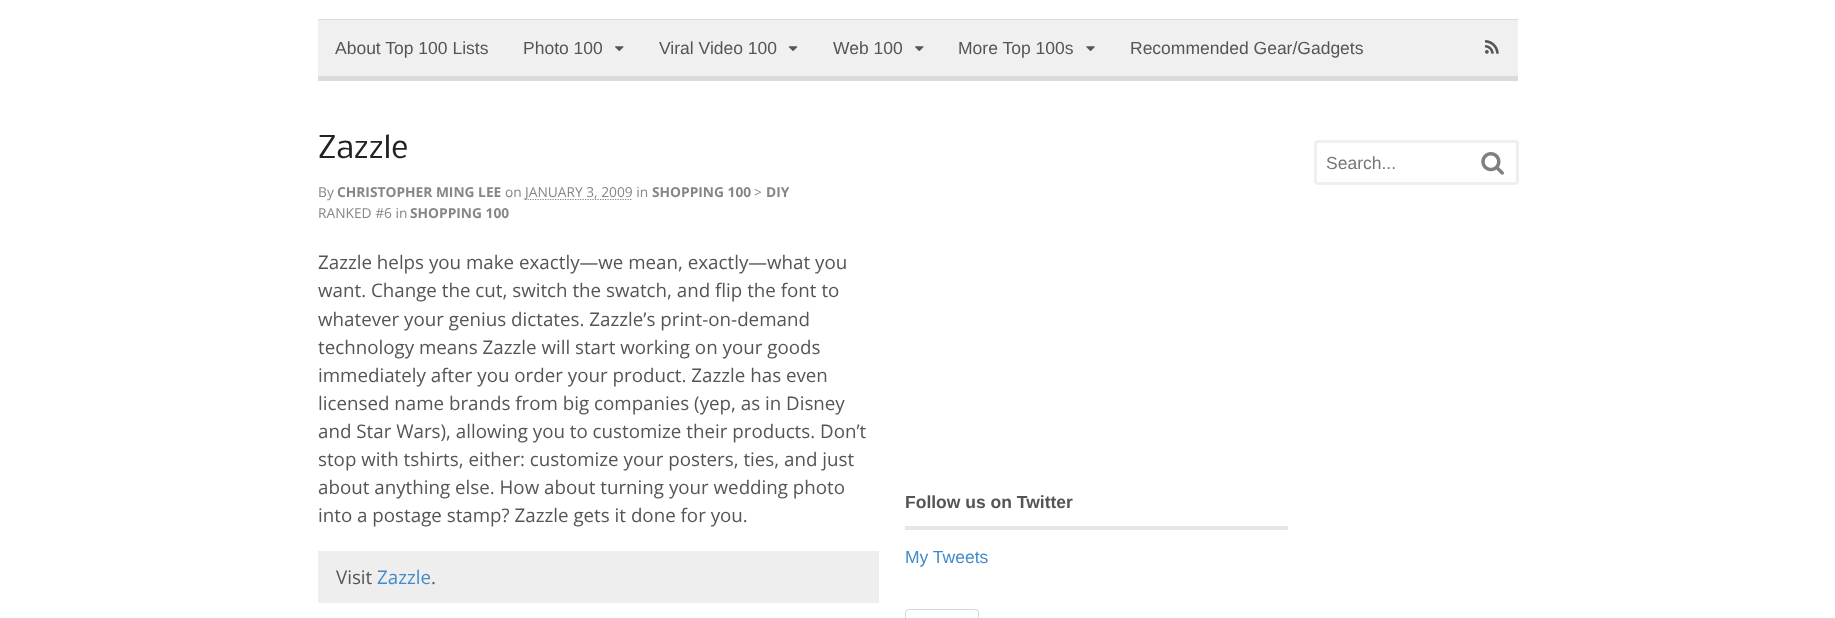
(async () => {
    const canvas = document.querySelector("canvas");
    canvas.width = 1835;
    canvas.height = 618;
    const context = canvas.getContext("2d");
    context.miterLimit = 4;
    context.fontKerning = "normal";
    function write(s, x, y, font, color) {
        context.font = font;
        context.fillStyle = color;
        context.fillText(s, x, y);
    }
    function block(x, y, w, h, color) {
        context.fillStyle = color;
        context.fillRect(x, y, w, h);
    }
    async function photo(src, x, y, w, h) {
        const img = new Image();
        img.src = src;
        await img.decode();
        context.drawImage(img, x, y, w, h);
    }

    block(0, 0, 1835, 618, "rgb(255, 255, 255)");
    block(318, 20, 1200, 56, "rgb(240, 240, 240)");
    block(318, 19, 1200, 1, "rgb(219, 219, 219)");
    block(318, 76, 1200, 5, "rgb(219, 219, 219)");
    write("About Top 100 Lists", 335, 54, "17.5px Liberation Sans", "rgb(85, 85, 85)");
    write("Photo 100", 523, 54, "17.5px Liberation Sans", "rgb(85, 85, 85)");
    await photo("media/1.png", 615, 46, 9, 5);
    write("Viral Video 100", 659, 54, "17.5px Liberation Sans", "rgb(85, 85, 85)");
    await photo("media/2.png", 788, 46, 10, 5);
    write("Web 100", 833, 54, "17.5px Liberation Sans", "rgb(85, 85, 85)");
    await photo("media/1.png", 915, 46, 9, 5);
    write("More Top 100s", 958, 54, "17.5px Liberation Sans", "rgb(85, 85, 85)");
    await photo("media/3.png", 1086, 46, 9, 5);
    write("Recommended Gear/Gadgets", 1130, 54, "17.5px Liberation Sans", "rgb(85, 85, 85)");
    await photo("media/4.png", 1485, 40, 14, 14);
    write("Zazzle", 318, 158, "30px Nobile", "rgb(34, 34, 34)");
    write("By", 318, 197, "13.75px Open Sans", "rgb(134, 134, 134)");
    write("CHRISTOPHER MING LEE", 337, 197, "bold 13.75px Open Sans", "rgb(134, 134, 134)");
    write("on", 505, 197, "13.75px Open Sans", "rgb(134, 134, 134)");
    context.beginPath();
    context.moveTo(525, 199.5);
    context.lineTo(632.5, 199.5);
    context.strokeStyle = "rgb(134, 134, 134)";
    context.lineWidth = 1.2;
    context.setLineDash([1.25, 1.25]);
    context.stroke();
    write("JANUARY 3, 2009 in", 525, 197, "13.75px Open Sans", "rgb(134, 134, 134)");
    write("SHOPPING 100", 652, 197, "bold 13.75px Open Sans", "rgb(134, 134, 134)");
    write(">", 754, 197, "13.75px Open Sans", "rgb(134, 134, 134)");
    write("DIY", 766, 197, "bold 13.75px Open Sans", "rgb(134, 134, 134)");
    write("RANKED #6 in", 318, 218, "13.75px Open Sans", "rgb(134, 134, 134)");
    write("SHOPPING 100", 410, 218, "bold 13.75px Open Sans", "rgb(134, 134, 134)");
    write("Zazzle helps you make exactly—we mean, exactly—what you", 318, 269, "18.75px Open Sans", "rgb(85, 85, 85)");
    write("want. Change the cut, switch the swatch, and flip the font to", 318, 297, "18.75px Open Sans", "rgb(85, 85, 85)");
    write("whatever your genius dictates. Zazzle’s print-on-demand", 318, 326, "18.75px Open Sans", "rgb(85, 85, 85)");
    write("technology means Zazzle will start working on your goods", 318, 354, "18.75px Open Sans", "rgb(85, 85, 85)");
    write("immediately after you order your product. Zazzle has even", 318, 382, "18.75px Open Sans", "rgb(85, 85, 85)");
    write("licensed name brands from big companies (yep, as in Disney", 318, 410, "18.75px Open Sans", "rgb(85, 85, 85)");
    write("and Star Wars), allowing you to customize their products. Don’t", 318, 438, "18.75px Open Sans", "rgb(85, 85, 85)");
    write("stop with tshirts, either: customize your posters, ties, and just", 318, 466, "18.75px Open Sans", "rgb(85, 85, 85)");
    write("about anything else. How about turning your wedding photo", 318, 494, "18.75px Open Sans", "rgb(85, 85, 85)");
    write("into a postage stamp? Zazzle gets it done for you.", 318, 522, "18.75px Open Sans", "rgb(85, 85, 85)");
    block(318, 551, 561, 52, "rgb(238, 238, 238)");
    write("Visit", 336, 584, "18.75px Open Sans", "rgb(85, 85, 85)");
    write("Zazzle", 377, 584, "18.75px Open Sans", "rgb(66, 139, 202)");
    write(".", 431, 584, "18.75px Open Sans", "rgb(85, 85, 85)");
    block(905, 526, 383, 4, "rgb(230, 230, 230)");
    write("Follow us on Twitter", 905, 508, "bold 17.5px Liberation Sans", "rgb(85, 85, 85)");
    write("My Tweets", 905, 563, "17.5px Liberation Sans", "rgb(66, 139, 202)");
    context.fillStyle = "rgb(217, 217, 217)";
    context.beginPath();
    context.moveTo(909, 609);
    context.lineTo(975, 609);
    context.bezierCurveTo(977, 609, 979, 610, 979, 612);
    context.lineTo(979, 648);
    context.lineTo(905, 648);
    context.lineTo(905, 612);
    context.bezierCurveTo(905, 610, 907, 609, 909, 609);
    context.closePath();
    context.moveTo(909, 610);
    context.lineTo(975, 610);
    context.bezierCurveTo(976, 610, 978, 611, 978, 612);
    context.lineTo(978, 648);
    context.lineTo(906, 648);
    context.lineTo(906, 612);
    context.bezierCurveTo(906, 611, 907, 610, 909, 610);
    context.closePath();
    context.fill("evenodd");
    context.beginPath();
    context.roundRect(1315.5, 141.5, 202, 42, 2.5);
    context.strokeStyle = "rgb(239, 239, 239)";
    context.lineWidth = 3;
    context.setLineDash([]);
    context.stroke();
    write("Search...", 1326, 169, "17.5px Liberation Sans", "rgb(119, 119, 119)");
    await photo("media/5.png", 1481, 152, 23, 23);
})();
